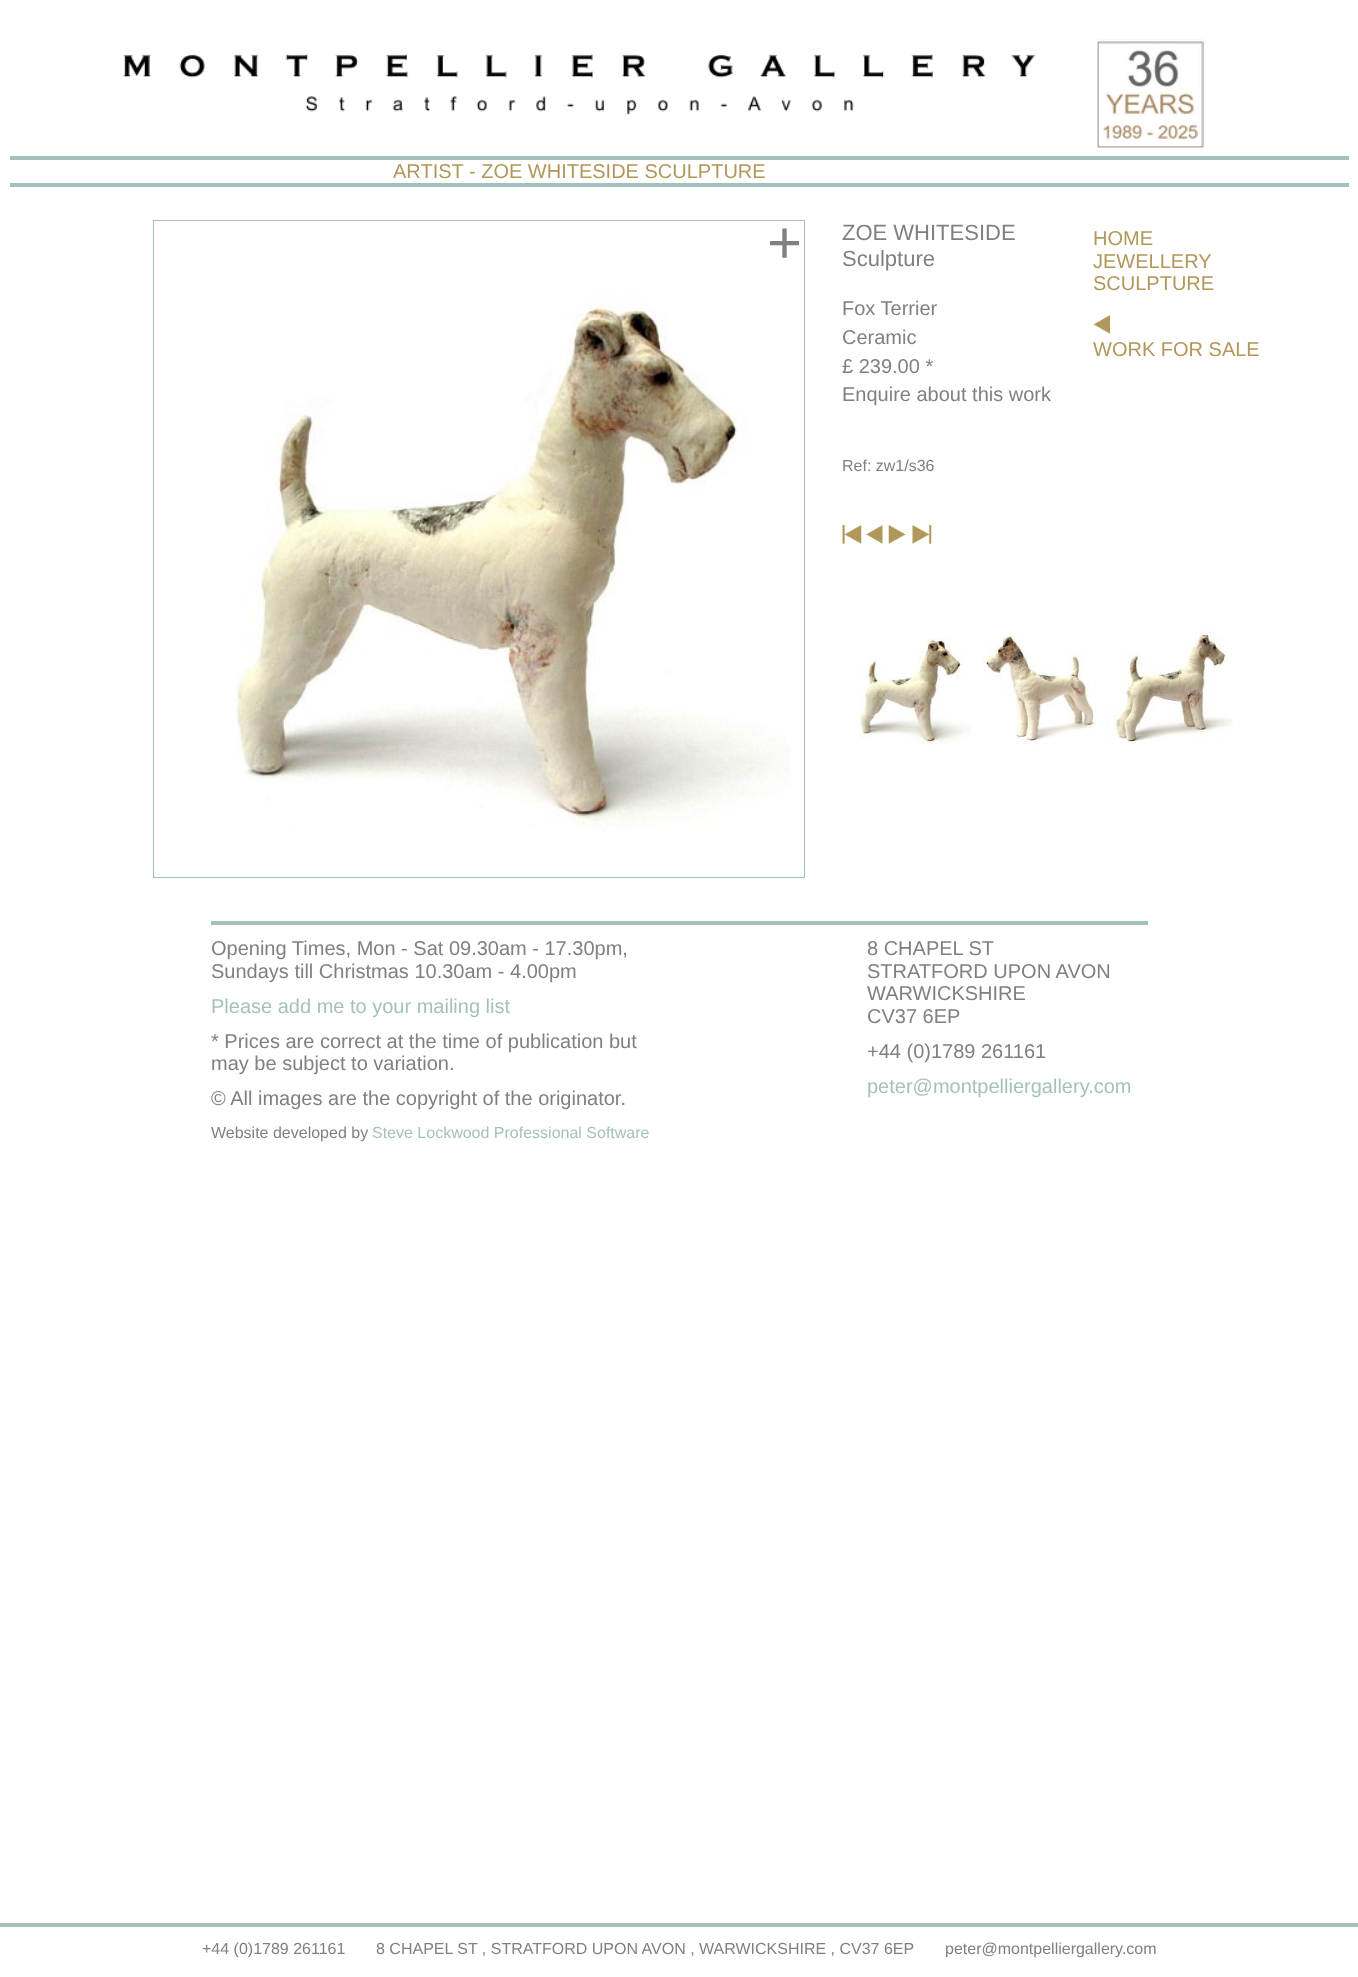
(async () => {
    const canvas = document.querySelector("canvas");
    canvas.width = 1358;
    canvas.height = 1977;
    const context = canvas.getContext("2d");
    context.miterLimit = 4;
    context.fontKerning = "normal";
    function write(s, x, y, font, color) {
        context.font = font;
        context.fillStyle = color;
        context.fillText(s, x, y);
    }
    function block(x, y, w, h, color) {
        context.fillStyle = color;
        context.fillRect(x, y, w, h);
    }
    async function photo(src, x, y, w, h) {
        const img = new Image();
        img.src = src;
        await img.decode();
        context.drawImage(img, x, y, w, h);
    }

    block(0, 0, 1358, 1977, "rgb(255, 255, 255)");
    await photo("media/1.png", 123, 53, 913, 62);
    await photo("media/2.png", 1097, 39, 109, 109);
    block(10, 156, 1339, 4, "rgb(165, 193, 189)");
    block(10, 183, 1339, 4, "rgb(165, 193, 189)");
    write("ARTIST - ZOE WHITESIDE SCULPTURE", 393, 178, "20px Liberation Sans", "rgb(176, 152, 90)");
    context.strokeStyle = "rgb(165, 193, 189)";
    context.strokeRect(153.5, 220.5, 651, 657);
    await photo("media/3.png", 234, 294, 557, 538);
    write("ZOE WHITESIDE", 842, 240, "22px Liberation Sans", "rgb(128, 128, 128)");
    write("Sculpture", 842, 266, "22px Liberation Sans", "rgb(128, 128, 128)");
    write("Fox Terrier", 842, 315, "20px Liberation Sans", "rgb(128, 128, 128)");
    write("Ceramic", 842, 344, "20px Liberation Sans", "rgb(128, 128, 128)");
    write("£ 239.00 *", 842, 373, "20px Liberation Sans", "rgb(128, 128, 128)");
    write("Enquire about this work", 842, 401, "20px Liberation Sans", "rgb(128, 128, 128)");
    write("Ref: zw1/s36", 842, 471, "16px Liberation Sans", "rgb(128, 128, 128)");
    await photo("media/4.png", 842, 525, 20, 19);
    await photo("media/5.png", 866, 525, 17, 19);
    await photo("media/6.png", 888, 525, 18, 19);
    await photo("media/7.png", 912, 525, 20, 19);
    await photo("media/8.png", 859, 638, 112, 107);
    await photo("media/9.png", 983, 632, 113, 113);
    await photo("media/10.png", 1107, 625, 126, 119);
    write("+", 767, 263, "60px Liberation Sans", "rgb(128, 128, 128)");
    write("HOME", 1093, 245, "20px Liberation Sans", "rgb(176, 152, 90)");
    write("JEWELLERY", 1093, 268, "20px Liberation Sans", "rgb(176, 152, 90)");
    write("SCULPTURE", 1093, 290, "20px Liberation Sans", "rgb(176, 152, 90)");
    await photo("media/11.png", 1093, 315, 17, 19);
    write("WORK FOR SALE", 1093, 356, "20px Liberation Sans", "rgb(176, 152, 90)");
    block(211, 921, 937, 4, "rgb(165, 193, 189)");
    write("Opening Times, Mon - Sat 09.30am - 17.30pm,", 211, 955, "20px Liberation Sans", "rgb(128, 128, 128)");
    write("Sundays till Christmas 10.30am - 4.00pm", 211, 978, "20px Liberation Sans", "rgb(128, 128, 128)");
    write("8 CHAPEL ST", 867, 955, "20px Liberation Sans", "rgb(128, 128, 128)");
    write("STRATFORD UPON AVON", 867, 978, "20px Liberation Sans", "rgb(128, 128, 128)");
    write("WARWICKSHIRE", 867, 1000, "20px Liberation Sans", "rgb(128, 128, 128)");
    write("CV37 6EP", 867, 1023, "20px Liberation Sans", "rgb(128, 128, 128)");
    write("Please add me to your mailing list", 211, 1013, "20px Liberation Sans", "rgb(165, 193, 189)");
    write("* Prices are correct at the time of publication but", 211, 1048, "20px Liberation Sans", "rgb(128, 128, 128)");
    write("may be subject to variation.", 211, 1070, "20px Liberation Sans", "rgb(128, 128, 128)");
    write("+44 (0)1789 261161", 867, 1058, "20px Liberation Sans", "rgb(128, 128, 128)");
    write("peter@montpelliergallery.com", 867, 1093, "20px Liberation Sans", "rgb(165, 193, 189)");
    write("© All images are the copyright of the originator.", 211, 1105, "20px Liberation Sans", "rgb(128, 128, 128)");
    write("Website developed by", 211, 1138, "16px Liberation Sans", "rgb(128, 128, 128)");
    write("Steve Lockwood Professional Software", 372, 1138, "16px Liberation Sans", "rgb(165, 193, 189)");
    block(0, 1923, 1358, 4, "rgb(165, 193, 189)");
    write("+44 (0)1789 261161", 202, 1954, "16px Liberation Sans", "rgb(128, 128, 128)");
    write("8 CHAPEL ST , STRATFORD UPON AVON , WARWICKSHIRE , CV37 6EP", 376, 1954, "16px Liberation Sans", "rgb(128, 128, 128)");
    write("peter@montpelliergallery.com", 945, 1954, "16px Liberation Sans", "rgb(128, 128, 128)");
})();
